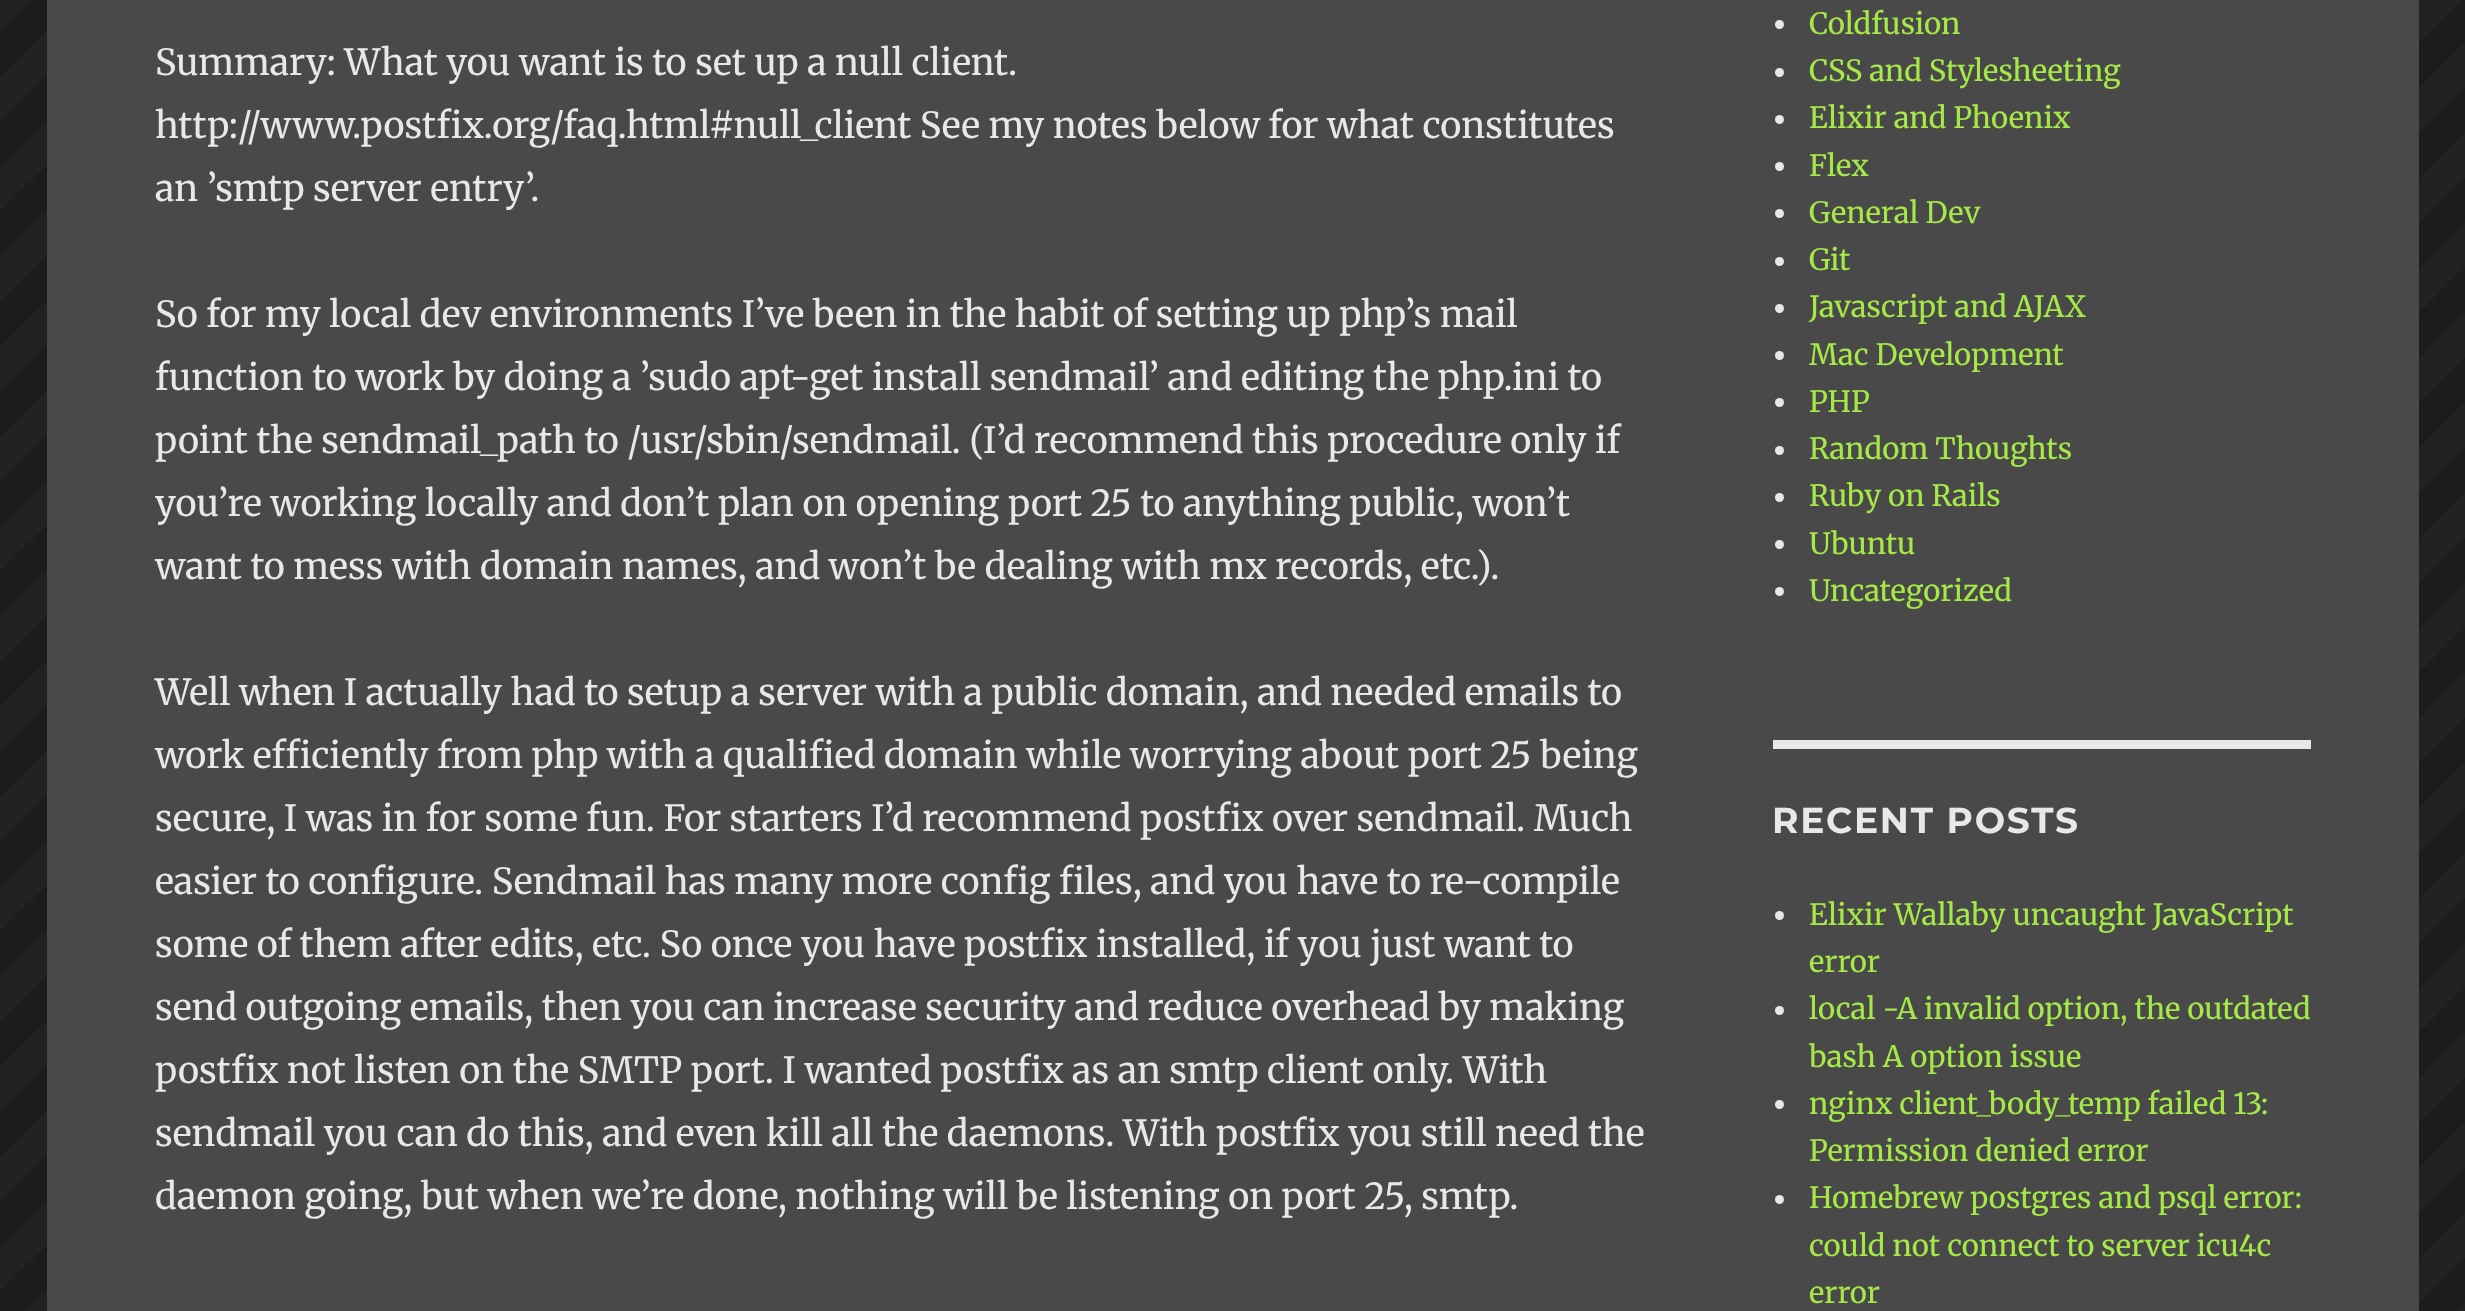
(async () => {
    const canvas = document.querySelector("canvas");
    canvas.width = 2465;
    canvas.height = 1311;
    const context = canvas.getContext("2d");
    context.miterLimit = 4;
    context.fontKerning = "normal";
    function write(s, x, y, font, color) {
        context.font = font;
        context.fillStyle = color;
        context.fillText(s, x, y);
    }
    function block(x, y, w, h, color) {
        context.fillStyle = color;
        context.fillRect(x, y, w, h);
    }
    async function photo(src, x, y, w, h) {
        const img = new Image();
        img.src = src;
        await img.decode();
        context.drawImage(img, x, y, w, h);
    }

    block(0, 0, 2465, 1311, "rgb(255, 255, 255)");
    await photo("media/1.png", 0, 0, 2465, 1311);
    block(47, 0, 2372, 1311, "rgb(73, 73, 73)");
    write("Summary: What you want is to set up a null client.", 155, 75, "36px Merriweather", "rgb(232, 232, 232)");
    write("http://www.postfix.org/faq.html#null_client See my notes below for what constitutes", 155, 138, "36px Merriweather", "rgb(232, 232, 232)");
    write("an ’smtp server entry’.", 155, 201, "36px Merriweather", "rgb(232, 232, 232)");
    write("So for my local dev environments I’ve been in the habit of setting up php’s mail", 155, 327, "36px Merriweather", "rgb(232, 232, 232)");
    write("function to work by doing a ’sudo apt-get install sendmail’ and editing the php.ini to", 155, 390, "36px Merriweather", "rgb(232, 232, 232)");
    write("point the sendmail_path to /usr/sbin/sendmail. (I’d recommend this procedure only if", 155, 453, "36px Merriweather", "rgb(232, 232, 232)");
    write("you’re working locally and don’t plan on opening port 25 to anything public, won’t", 155, 516, "36px Merriweather", "rgb(232, 232, 232)");
    write("want to mess with domain names, and won’t be dealing with mx records, etc.).", 155, 579, "36px Merriweather", "rgb(232, 232, 232)");
    write("Well when I actually had to setup a server with a public domain, and needed emails to", 155, 705, "36px Merriweather", "rgb(232, 232, 232)");
    write("work efficiently from php with a qualified domain while worrying about port 25 being", 155, 768, "36px Merriweather", "rgb(232, 232, 232)");
    write("secure, I was in for some fun. For starters I’d recommend postfix over sendmail. Much", 155, 831, "36px Merriweather", "rgb(232, 232, 232)");
    write("easier to configure. Sendmail has many more config files, and you have to re-compile", 155, 894, "36px Merriweather", "rgb(232, 232, 232)");
    write("some of them after edits, etc. So once you have postfix installed, if you just want to", 155, 957, "36px Merriweather", "rgb(232, 232, 232)");
    write("send outgoing emails, then you can increase security and reduce overhead by making", 155, 1020, "36px Merriweather", "rgb(232, 232, 232)");
    write("postfix not listen on the SMTP port. I wanted postfix as an smtp client only. With", 155, 1083, "36px Merriweather", "rgb(232, 232, 232)");
    write("sendmail you can do this, and even kill all the daemons. With postfix you still need the", 155, 1146, "36px Merriweather", "rgb(232, 232, 232)");
    write("daemon going, but when we’re done, nothing will be listening on port 25, smtp.", 155, 1209, "36px Merriweather", "rgb(232, 232, 232)");
    context.beginPath();
    context.arc(1779.5, 24.5, 4.5, 0, Math.PI * 2);
    context.fill();
    write("Coldfusion", 1809, 34, "29.25px Merriweather", "rgb(165, 232, 71)");
    context.fillStyle = "rgb(232, 232, 232)";
    context.beginPath();
    context.arc(1779.5, 72.5, 4.5, 0, Math.PI * 2);
    context.fill();
    write("CSS and Stylesheeting", 1809, 81, "29.25px Merriweather", "rgb(165, 232, 71)");
    context.fillStyle = "rgb(232, 232, 232)";
    context.beginPath();
    context.arc(1779.5, 119.5, 4.5, 0, Math.PI * 2);
    context.fill();
    write("Elixir and Phoenix", 1809, 128, "29.25px Merriweather", "rgb(165, 232, 71)");
    context.fillStyle = "rgb(232, 232, 232)";
    context.beginPath();
    context.arc(1779.5, 166.5, 4.5, 0, Math.PI * 2);
    context.fill();
    write("Flex", 1809, 176, "29.25px Merriweather", "rgb(165, 232, 71)");
    context.fillStyle = "rgb(232, 232, 232)";
    context.beginPath();
    context.arc(1779.5, 213.5, 4.5, 0, Math.PI * 2);
    context.fill();
    write("General Dev", 1809, 223, "29.25px Merriweather", "rgb(165, 232, 71)");
    context.fillStyle = "rgb(232, 232, 232)";
    context.beginPath();
    context.arc(1779.5, 261.5, 4.5, 0, Math.PI * 2);
    context.fill();
    write("Git", 1809, 270, "29.25px Merriweather", "rgb(165, 232, 71)");
    context.fillStyle = "rgb(232, 232, 232)";
    context.beginPath();
    context.arc(1779.5, 308.5, 4.5, 0, Math.PI * 2);
    context.fill();
    write("Javascript and AJAX", 1809, 317, "29.25px Merriweather", "rgb(165, 232, 71)");
    context.fillStyle = "rgb(232, 232, 232)";
    context.beginPath();
    context.arc(1779.5, 355.5, 4.5, 0, Math.PI * 2);
    context.fill();
    write("Mac Development", 1809, 365, "29.25px Merriweather", "rgb(165, 232, 71)");
    context.fillStyle = "rgb(232, 232, 232)";
    context.beginPath();
    context.arc(1779.5, 402.5, 4.5, 0, Math.PI * 2);
    context.fill();
    write("PHP", 1809, 412, "29.25px Merriweather", "rgb(165, 232, 71)");
    context.fillStyle = "rgb(232, 232, 232)";
    context.beginPath();
    context.arc(1779.5, 450.5, 4.5, 0, Math.PI * 2);
    context.fill();
    write("Random Thoughts", 1809, 459, "29.25px Merriweather", "rgb(165, 232, 71)");
    context.fillStyle = "rgb(232, 232, 232)";
    context.beginPath();
    context.arc(1779.5, 497.5, 4.5, 0, Math.PI * 2);
    context.fill();
    write("Ruby on Rails", 1809, 506, "29.25px Merriweather", "rgb(165, 232, 71)");
    context.fillStyle = "rgb(232, 232, 232)";
    context.beginPath();
    context.arc(1779.5, 544.5, 4.5, 0, Math.PI * 2);
    context.fill();
    write("Ubuntu", 1809, 554, "29.25px Merriweather", "rgb(165, 232, 71)");
    context.fillStyle = "rgb(232, 232, 232)";
    context.beginPath();
    context.arc(1779.5, 591.5, 4.5, 0, Math.PI * 2);
    context.fill();
    write("Uncategorized", 1809, 601, "29.25px Merriweather", "rgb(165, 232, 71)");
    block(1773, 740, 538, 9, "rgb(232, 232, 232)");
    context.letterSpacing = "1.75px";
    write("RECENT POSTS", 1772, 833, "bold 36px Montserrat", "rgb(232, 232, 232)");
    context.beginPath();
    context.arc(1779.5, 915.5, 4.5, 0, Math.PI * 2);
    context.fill();
    context.letterSpacing = "0px";
    write("Elixir Wallaby uncaught JavaScript", 1809, 925, "29.25px Merriweather", "rgb(165, 232, 71)");
    write("error", 1809, 972, "29.25px Merriweather", "rgb(165, 232, 71)");
    context.fillStyle = "rgb(232, 232, 232)";
    context.beginPath();
    context.arc(1779.5, 1010.5, 4.5, 0, Math.PI * 2);
    context.fill();
    write("local -A invalid option, the outdated", 1809, 1019, "29.25px Merriweather", "rgb(165, 232, 71)");
    write("bash A option issue", 1809, 1067, "29.25px Merriweather", "rgb(165, 232, 71)");
    context.fillStyle = "rgb(232, 232, 232)";
    context.beginPath();
    context.arc(1779.5, 1104.5, 4.5, 0, Math.PI * 2);
    context.fill();
    write("nginx client_body_temp failed 13:", 1809, 1114, "29.25px Merriweather", "rgb(165, 232, 71)");
    write("Permission denied error", 1809, 1161, "29.25px Merriweather", "rgb(165, 232, 71)");
    context.fillStyle = "rgb(232, 232, 232)";
    context.beginPath();
    context.arc(1779.5, 1199.5, 4.5, 0, Math.PI * 2);
    context.fill();
    write("Homebrew postgres and psql error:", 1809, 1208, "29.25px Merriweather", "rgb(165, 232, 71)");
    write("could not connect to server icu4c", 1809, 1256, "29.25px Merriweather", "rgb(165, 232, 71)");
    write("error", 1809, 1303, "29.25px Merriweather", "rgb(165, 232, 71)");
})();
